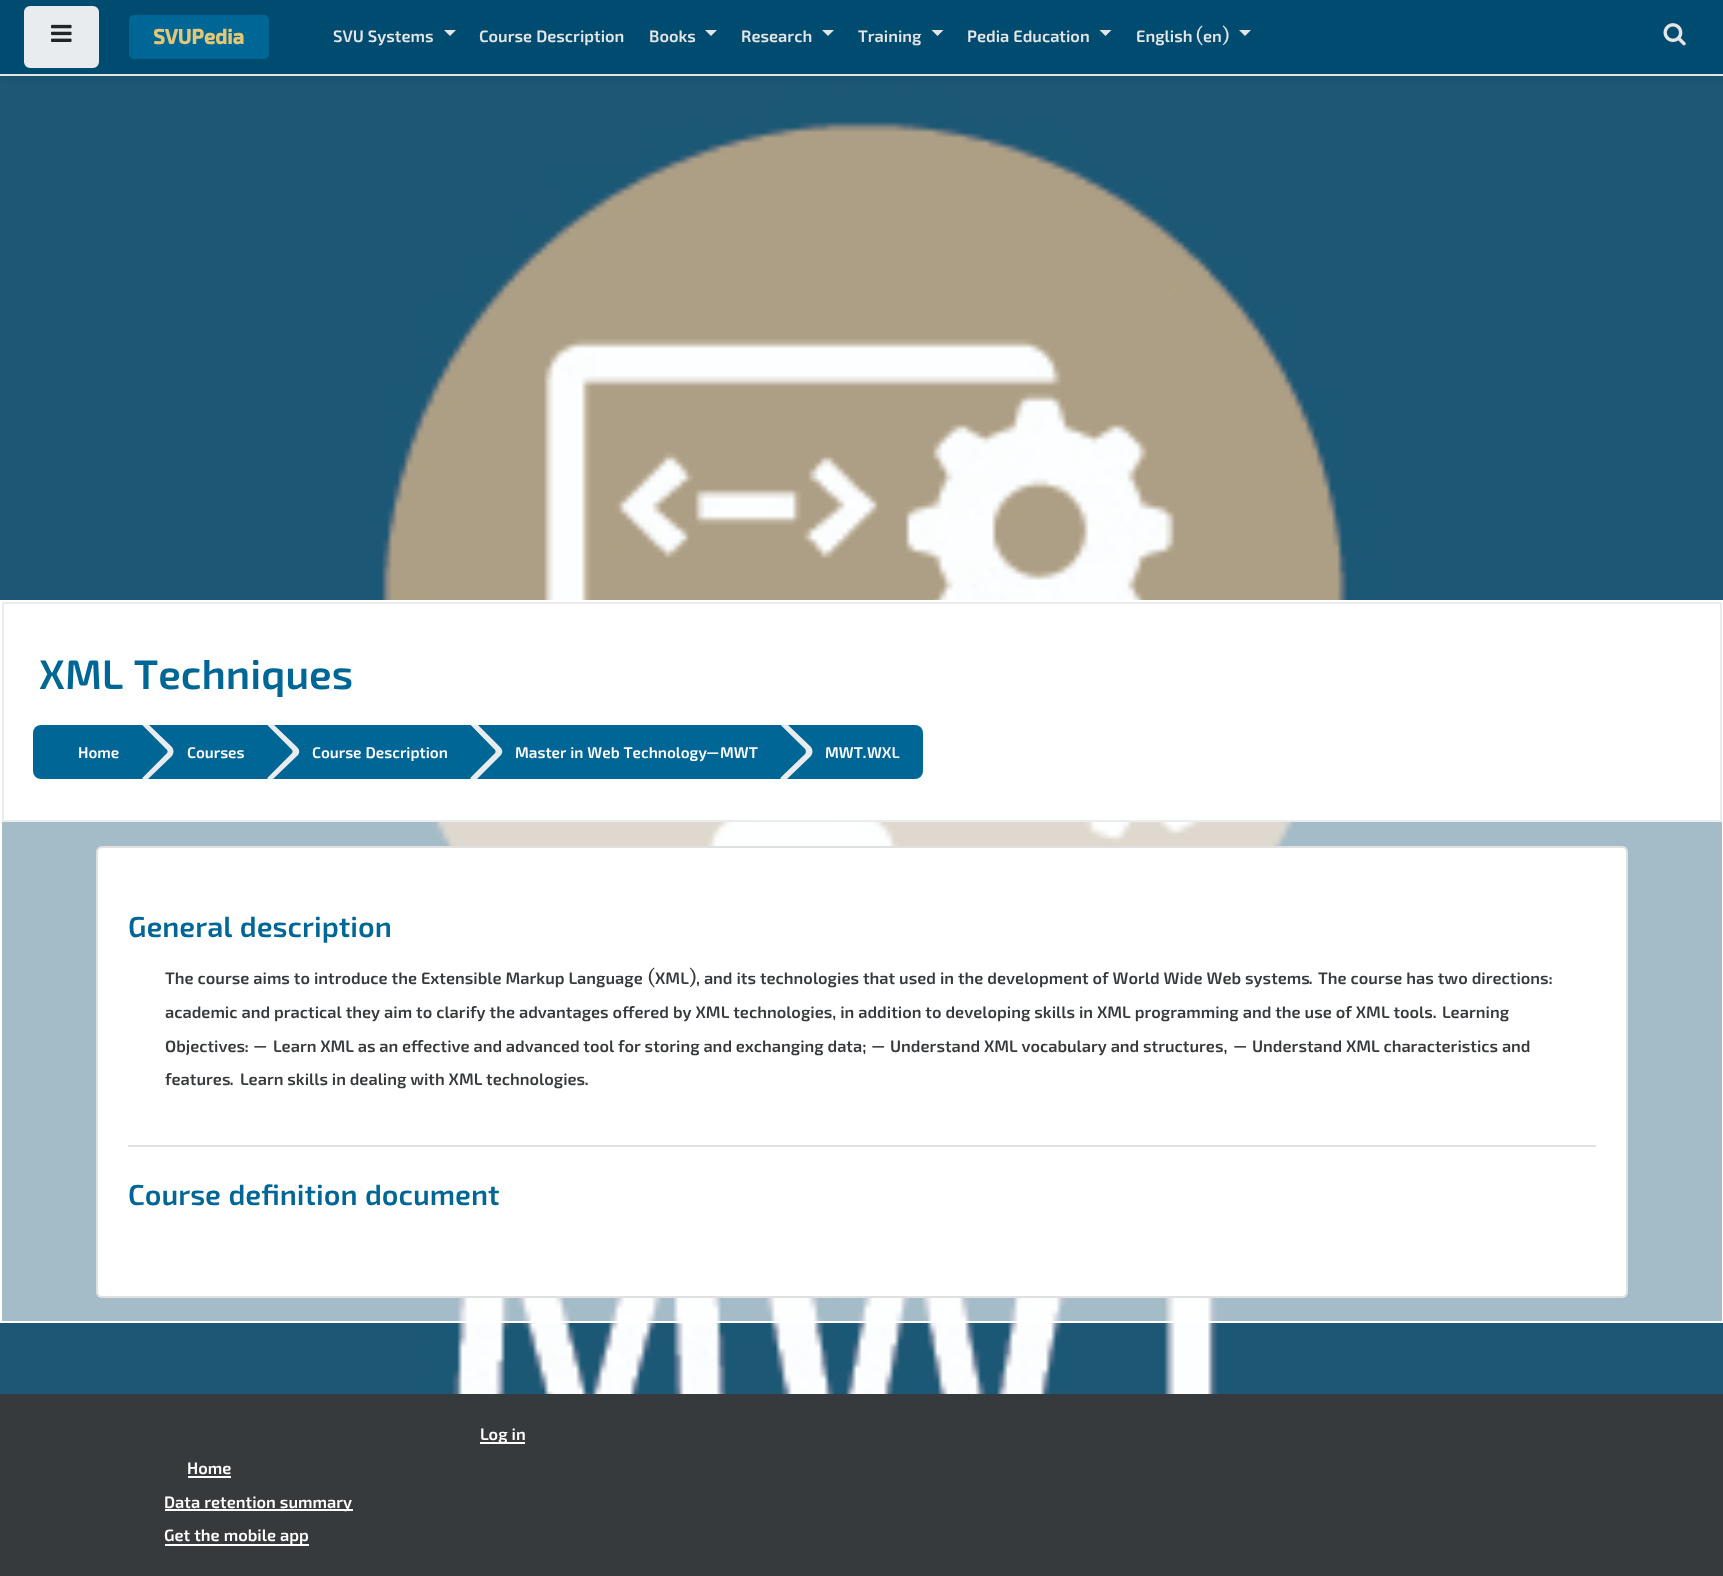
(async () => {
    const canvas = document.querySelector("canvas");
    canvas.width = 1723;
    canvas.height = 1576;
    const context = canvas.getContext("2d");
    context.miterLimit = 4;
    context.fontKerning = "normal";
    function write(s, x, y, font, color) {
        context.font = font;
        context.fillStyle = color;
        context.fillText(s, x, y);
    }
    function block(x, y, w, h, color) {
        context.fillStyle = color;
        context.fillRect(x, y, w, h);
    }
    function card(x, y, w, h, r, color) {
        context.fillStyle = color;
        context.beginPath();
        context.roundRect(x, y, w, h, r);
        context.fill();
    }
    async function photo(src, x, y, w, h) {
        const img = new Image();
        img.src = src;
        await img.decode();
        context.drawImage(img, x, y, w, h);
    }

    block(0, 0, 1723, 1576, "rgb(255, 255, 255)");
    await photo("media/3.png", 0, 76, 1723, 1318);
    context.fillStyle = "rgba(0, 0, 0, 0.08)";
    context.filter = "blur(3px)";
    context.beginPath();
    context.rect(0, 3, 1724, 75);
    context.fill();
    context.filter = "none";
    block(0, 0, 1723, 74, "rgb(0, 76, 113)");
    block(0, 74, 1723, 2, "rgb(229, 229, 229)");
    context.fillStyle = "rgb(233, 236, 239)";
    context.beginPath();
    context.roundRect(25, 7, 73, 60, 5);
    context.fill();
    context.strokeStyle = "rgb(233, 236, 239)";
    context.lineWidth = 2;
    context.stroke();
    await photo("media/1.png", 51, 24, 21, 18);
    card(129, 15, 140, 44, 5, "rgb(0, 102, 149)");
    write("SVUPedia", 153, 44, "bold 28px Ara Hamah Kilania", "rgb(225, 200, 120)");
    context.wordSpacing = "1.5px";
    write("SVU Systems", 333, 42, "22.5px Ara Hamah Kilania", "rgb(229, 229, 229)");
    context.beginPath();
    context.moveTo(444, 30);
    context.lineTo(456, 30);
    context.lineTo(450, 36);
    context.closePath();
    context.fill();
    write("Course Description", 479, 42, "22.5px Ara Hamah Kilania", "rgb(229, 229, 229)");
    context.wordSpacing = "0px";
    write("Books", 649, 42, "22.5px Ara Hamah Kilania", "rgb(229, 229, 229)");
    context.beginPath();
    context.moveTo(705, 30);
    context.lineTo(717, 30);
    context.lineTo(711, 36);
    context.closePath();
    context.fill();
    write("Research", 741, 42, "22.5px Ara Hamah Kilania", "rgb(229, 229, 229)");
    context.beginPath();
    context.moveTo(822, 30);
    context.lineTo(834, 30);
    context.lineTo(828, 36);
    context.closePath();
    context.fill();
    write("Training", 858, 42, "22.5px Ara Hamah Kilania", "rgb(229, 229, 229)");
    context.beginPath();
    context.moveTo(931.5, 30);
    context.lineTo(943.5, 30);
    context.lineTo(937.5, 36);
    context.closePath();
    context.fill();
    context.wordSpacing = "1.5px";
    write("Pedia Education", 967, 42, "22.5px Ara Hamah Kilania", "rgb(229, 229, 229)");
    context.beginPath();
    context.moveTo(1099.5, 30);
    context.lineTo(1111.5, 30);
    context.lineTo(1105.5, 36);
    context.closePath();
    context.fill();
    context.wordSpacing = "0px";
    write("English", 1136, 42, "22.5px Ara Hamah Kilania", "rgb(229, 229, 229)");
    write("(", 1196, 42, "300 22.5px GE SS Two", "rgb(229, 229, 229)");
    write("en", 1203, 42, "22.5px Ara Hamah Kilania", "rgb(229, 229, 229)");
    write(")", 1222, 42, "300 22.5px GE SS Two", "rgb(229, 229, 229)");
    context.beginPath();
    context.moveTo(1239, 30);
    context.lineTo(1251, 30);
    context.lineTo(1245, 36);
    context.closePath();
    context.fill();
    await photo("media/2.png", 1663, 23, 23, 23);
    block(2, 822, 1720, 499, "rgba(255, 255, 255, 0.6)");
    context.strokeStyle = "rgb(255, 255, 255)";
    context.strokeRect(1, 601, 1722, 721);
    context.fillStyle = "rgb(255, 255, 255)";
    context.beginPath();
    context.rect(3, 603, 1718, 218);
    context.fill();
    context.strokeStyle = "rgb(233, 236, 239)";
    context.stroke();
    context.wordSpacing = "4px";
    write("XML Techniques", 39, 689, "56.25px Ara Hamah Kilania", "rgb(0, 102, 149)");
    context.beginPath();
    context.roundRect(33, 725, 110, 54, [8, 0, 0, 8]);
    context.fill();
    context.wordSpacing = "0px";
    write("Home", 78, 758, "21px Ara Hamah Kilania", "rgb(255, 255, 255)");
    block(143, 725, 637, 54, "rgb(0, 102, 149)");
    context.fillStyle = "rgb(233, 236, 239)";
    context.beginPath();
    context.moveTo(144, 779);
    context.lineTo(148, 779);
    context.lineTo(172, 756);
    context.bezierCurveTo(174, 753, 174, 750, 172, 747);
    context.lineTo(149, 725);
    context.lineTo(143, 725);
    context.lineTo(166, 749);
    context.bezierCurveTo(168, 750, 168, 753, 166, 754);
    context.lineTo(143, 778);
    context.closePath();
    context.fill();
    context.beginPath();
    context.moveTo(141, 725);
    context.lineTo(138, 728);
    context.closePath();
    context.moveTo(143, 779);
    context.lineTo(147, 779);
    context.lineTo(171, 756);
    context.bezierCurveTo(173, 753, 173, 750, 171, 747);
    context.lineTo(148, 725);
    context.lineTo(142, 725);
    context.lineTo(166, 749);
    context.bezierCurveTo(168, 750, 168, 753, 166, 754);
    context.lineTo(142, 778);
    context.closePath();
    context.fill("evenodd");
    context.fillStyle = "rgb(0, 102, 149)";
    context.beginPath();
    context.moveTo(142, 725);
    context.lineTo(166, 749);
    context.bezierCurveTo(168, 750, 168, 753, 166, 754);
    context.lineTo(142, 778);
    context.bezierCurveTo(127, 764, 127, 739, 142, 725);
    context.closePath();
    context.fill();
    write("Courses", 187, 758, "21px Ara Hamah Kilania", "rgb(255, 255, 255)");
    context.fillStyle = "rgb(233, 236, 239)";
    context.beginPath();
    context.moveTo(269, 779);
    context.lineTo(273, 779);
    context.lineTo(297, 756);
    context.bezierCurveTo(300, 753, 300, 750, 297, 747);
    context.lineTo(274, 725);
    context.lineTo(268, 725);
    context.lineTo(291, 749);
    context.bezierCurveTo(293, 750, 293, 753, 291, 754);
    context.lineTo(268, 778);
    context.closePath();
    context.fill();
    context.beginPath();
    context.moveTo(266, 725);
    context.lineTo(263, 730);
    context.closePath();
    context.moveTo(268, 779);
    context.lineTo(272, 779);
    context.lineTo(296, 756);
    context.bezierCurveTo(298, 753, 298, 750, 296, 747);
    context.lineTo(273, 725);
    context.lineTo(267, 725);
    context.lineTo(291, 749);
    context.bezierCurveTo(293, 750, 293, 753, 291, 754);
    context.lineTo(267, 778);
    context.closePath();
    context.fill("evenodd");
    context.fillStyle = "rgb(0, 102, 149)";
    context.beginPath();
    context.moveTo(267, 725);
    context.lineTo(291, 749);
    context.bezierCurveTo(293, 750, 293, 753, 291, 754);
    context.lineTo(267, 778);
    context.bezierCurveTo(252, 764, 252, 739, 267, 725);
    context.closePath();
    context.fill();
    context.wordSpacing = "1.5px";
    write("Course Description", 312, 758, "21px Ara Hamah Kilania", "rgb(255, 255, 255)");
    context.fillStyle = "rgb(233, 236, 239)";
    context.beginPath();
    context.moveTo(473, 779);
    context.lineTo(477, 779);
    context.lineTo(500, 756);
    context.bezierCurveTo(503, 753, 503, 750, 500, 747);
    context.lineTo(478, 725);
    context.lineTo(471, 725);
    context.lineTo(494, 749);
    context.bezierCurveTo(496, 750, 496, 753, 494, 754);
    context.lineTo(471, 777);
    context.closePath();
    context.fill();
    context.beginPath();
    context.moveTo(471, 779);
    context.lineTo(475, 779);
    context.lineTo(499, 756);
    context.bezierCurveTo(501, 753, 501, 750, 499, 747);
    context.lineTo(476, 725);
    context.lineTo(471, 725);
    context.lineTo(494, 749);
    context.bezierCurveTo(496, 750, 496, 753, 494, 754);
    context.lineTo(470, 778);
    context.closePath();
    context.fill();
    context.fillStyle = "rgb(0, 102, 149)";
    context.beginPath();
    context.moveTo(470, 725);
    context.lineTo(494, 749);
    context.bezierCurveTo(496, 750, 496, 753, 494, 754);
    context.lineTo(470, 778);
    context.bezierCurveTo(455, 764, 455, 739, 470, 725);
    context.closePath();
    context.fill();
    write("Master in Web Technology", 515, 758, "21px Ara Hamah Kilania", "rgb(255, 255, 255)");
    context.wordSpacing = "0px";
    write("-", 706, 758, "300 21px GE SS Two", "rgb(255, 255, 255)");
    write("MWT", 720, 758, "21px Ara Hamah Kilania", "rgb(255, 255, 255)");
    context.fillStyle = "rgb(0, 102, 149)";
    context.beginPath();
    context.roundRect(780, 725, 143, 54, [0, 8, 8, 0]);
    context.fill();
    context.fillStyle = "rgb(233, 236, 239)";
    context.beginPath();
    context.moveTo(783, 779);
    context.lineTo(787, 779);
    context.lineTo(811, 756);
    context.bezierCurveTo(813, 753, 813, 750, 811, 747);
    context.lineTo(788, 725);
    context.lineTo(781, 725);
    context.lineTo(805, 749);
    context.bezierCurveTo(806, 750, 806, 753, 805, 754);
    context.lineTo(781, 777);
    context.closePath();
    context.fill();
    context.beginPath();
    context.moveTo(781, 779);
    context.lineTo(785, 779);
    context.lineTo(809, 756);
    context.bezierCurveTo(811, 753, 811, 750, 809, 747);
    context.lineTo(786, 725);
    context.lineTo(781, 725);
    context.lineTo(805, 749);
    context.bezierCurveTo(806, 750, 806, 753, 805, 754);
    context.lineTo(780, 778);
    context.closePath();
    context.fill();
    context.fillStyle = "rgb(0, 102, 149)";
    context.beginPath();
    context.moveTo(780, 725);
    context.lineTo(805, 749);
    context.bezierCurveTo(806, 750, 806, 753, 805, 754);
    context.lineTo(780, 778);
    context.bezierCurveTo(765, 764, 765, 739, 780, 725);
    context.closePath();
    context.fill();
    write("MWT", 825, 758, "21px Ara Hamah Kilania", "rgb(255, 255, 255)");
    write(".", 863, 758, "300 21px GE SS Two", "rgb(255, 255, 255)");
    write("WXL", 867, 758, "21px Ara Hamah Kilania", "rgb(255, 255, 255)");
    card(96, 846, 1532, 452, 6, "rgb(255, 255, 255)");
    context.beginPath();
    context.roundRect(97, 847, 1530, 450, 5);
    context.strokeStyle = "rgba(0, 0, 0, 0.12)";
    context.stroke();
    block(128, 1145, 1468, 2, "rgb(222, 226, 230)");
    context.wordSpacing = "3px";
    write("General description", 128, 937, "39.4px Ara Hamah Kilania", "rgb(0, 102, 149)");
    context.wordSpacing = "1.4px";
    write("The course aims to introduce the Extensible Markup Language", 165, 984, "22.5px Ara Hamah Kilania", "rgb(55, 58, 60)");
    context.wordSpacing = "0px";
    write("(", 648, 984, "300 22.5px GE SS Two", "rgb(55, 58, 60)");
    write("XML", 655, 984, "22.5px Ara Hamah Kilania", "rgb(55, 58, 60)");
    write(")", 689, 984, "300 22.5px GE SS Two", "rgb(55, 58, 60)");
    context.wordSpacing = "1.4px";
    write(", and its technologies that used in the development of World Wide Web systems", 696, 984, "22.5px Ara Hamah Kilania", "rgb(55, 58, 60)");
    context.wordSpacing = "0px";
    write(".", 1309, 984, "300 22.5px GE SS Two", "rgb(55, 58, 60)");
    context.wordSpacing = "1.4px";
    write("The course has two directions", 1318, 984, "22.5px Ara Hamah Kilania", "rgb(55, 58, 60)");
    context.wordSpacing = "0px";
    write(":", 1549, 984, "300 22.5px GE SS Two", "rgb(55, 58, 60)");
    context.wordSpacing = "1.4px";
    write("academic and practical they aim to clarify the advantages offered by XML technologies, in addition to developing skills in XML programming and the use of XML tools", 165, 1018, "22.5px Ara Hamah Kilania", "rgb(55, 58, 60)");
    context.wordSpacing = "0px";
    write(".", 1433, 1018, "300 22.5px GE SS Two", "rgb(55, 58, 60)");
    write("Learning", 1442, 1018, "22.5px Ara Hamah Kilania", "rgb(55, 58, 60)");
    write("Objectives", 165, 1052, "22.5px Ara Hamah Kilania", "rgb(55, 58, 60)");
    write(": -", 245, 1052, "300 22.5px GE SS Two", "rgb(55, 58, 60)");
    context.wordSpacing = "1.2px";
    write("Learn XML as an effective and advanced tool for storing and exchanging data;", 273, 1052, "22.5px Ara Hamah Kilania", "rgb(55, 58, 60)");
    context.wordSpacing = "0px";
    write("-", 871, 1052, "300 22.5px GE SS Two", "rgb(55, 58, 60)");
    context.wordSpacing = "1.2px";
    write("Understand XML vocabulary and structures,", 890, 1052, "22.5px Ara Hamah Kilania", "rgb(55, 58, 60)");
    context.wordSpacing = "0px";
    write("-", 1233, 1052, "300 22.5px GE SS Two", "rgb(55, 58, 60)");
    context.wordSpacing = "1.2px";
    write("Understand XML characteristics and", 1252, 1052, "22.5px Ara Hamah Kilania", "rgb(55, 58, 60)");
    context.wordSpacing = "0px";
    write("features", 165, 1085, "22.5px Ara Hamah Kilania", "rgb(55, 58, 60)");
    write(".", 230, 1085, "300 22.5px GE SS Two", "rgb(55, 58, 60)");
    context.wordSpacing = "1.25px";
    write("Learn skills in dealing with XML technologies", 240, 1085, "22.5px Ara Hamah Kilania", "rgb(55, 58, 60)");
    context.wordSpacing = "0px";
    write(".", 585, 1085, "300 22.5px GE SS Two", "rgb(55, 58, 60)");
    context.wordSpacing = "3px";
    write("Course definition document", 128, 1205, "39.4px Ara Hamah Kilania", "rgb(0, 102, 149)");
    block(0, 1394, 1723, 182, "rgb(55, 58, 60)");
    block(480, 1442, 45, 2, "rgb(255, 255, 255)");
    context.wordSpacing = "1.5px";
    write("Log in", 480, 1440, "22.5px Ara Hamah Kilania", "rgb(255, 255, 255)");
    context.wordSpacing = "0px";
    write("Home", 187, 1474, "22.5px Ara Hamah Kilania", "rgb(255, 255, 255)");
    block(188, 1476, 43, 2, "rgb(255, 255, 255)");
    block(165, 1509, 188, 2, "rgb(255, 255, 255)");
    context.wordSpacing = "1.5px";
    write("Data retention summary", 164, 1508, "22.5px Ara Hamah Kilania", "rgb(255, 255, 255)");
    block(165, 1544, 144, 2, "rgb(255, 255, 255)");
    write("Get the mobile app", 164, 1541, "22.5px Ara Hamah Kilania", "rgb(255, 255, 255)");
})();
